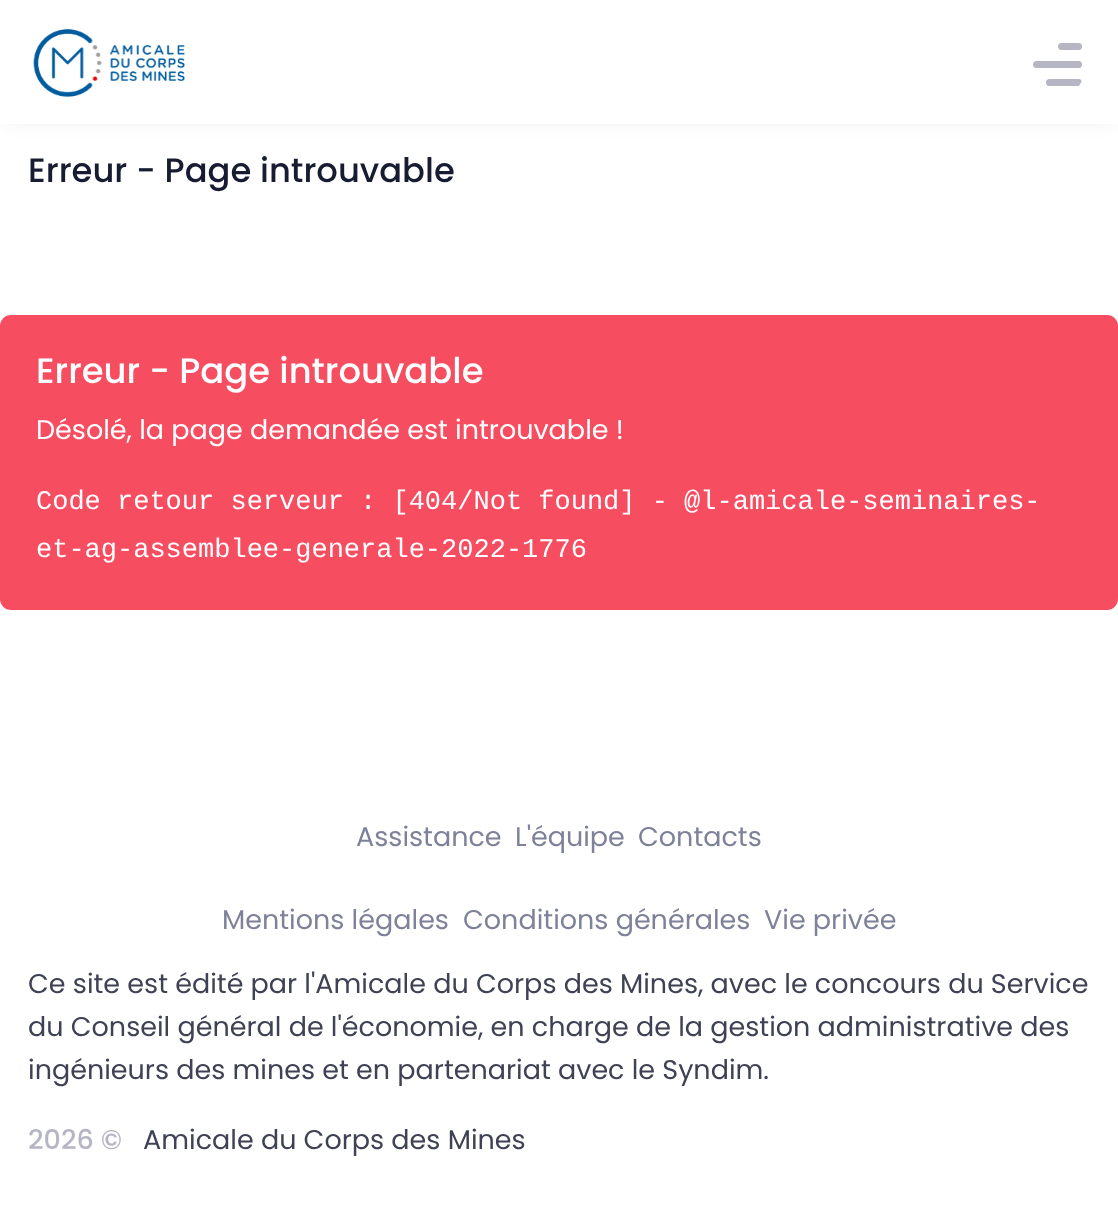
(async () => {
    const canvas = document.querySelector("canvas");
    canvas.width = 1118;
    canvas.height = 1213;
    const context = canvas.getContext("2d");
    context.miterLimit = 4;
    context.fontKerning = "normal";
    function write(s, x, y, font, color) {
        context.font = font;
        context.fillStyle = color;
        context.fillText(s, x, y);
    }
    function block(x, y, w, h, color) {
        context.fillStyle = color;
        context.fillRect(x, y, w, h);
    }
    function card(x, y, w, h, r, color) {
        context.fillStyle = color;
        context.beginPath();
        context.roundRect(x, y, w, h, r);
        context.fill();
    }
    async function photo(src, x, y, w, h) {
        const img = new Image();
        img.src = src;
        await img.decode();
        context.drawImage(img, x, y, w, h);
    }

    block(0, 0, 1118, 1213, "rgb(255, 255, 255)");
    context.fillStyle = "rgba(0, 0, 0, 0.1)";
    context.filter = "blur(10px)";
    context.beginPath();
    context.rect(7, 9, 1105, 110);
    context.fill();
    context.filter = "none";
    block(0, 0, 1118, 124, "rgb(255, 255, 255)");
    await photo("media/1.png", 33, 29, 152, 68);
    card(1033, 61, 49, 7, 3.5, "rgb(181, 181, 195)");
    card(1058, 43, 24, 7, 3.5, "rgb(181, 181, 195)");
    context.save();
    context.beginPath();
    context.roundRect(1033, 38, 49, 50, 9);
    context.clip();
    card(1046, 79, 36, 7, 3.5, "rgb(181, 181, 195)");
    context.restore();
    write("Erreur - Page introuvable", 28, 182, "500 33.75px Poppins", "rgb(24, 28, 50)");
    context.fillStyle = "rgb(246, 78, 96)";
    context.beginPath();
    context.roundRect(1, 316, 1116, 293, 10);
    context.fill();
    context.strokeStyle = "rgb(246, 78, 96)";
    context.lineWidth = 2;
    context.stroke();
    write("Erreur - Page introuvable", 36, 383, "500 35.4px Poppins", "rgb(255, 255, 255)");
    write("Désolé, la page demandée est introuvable !", 36, 439, "27px Poppins", "rgb(255, 255, 255)");
    write("Code retour serveur : [404/Not found] - @l-amicale-seminaires-", 36, 509, "27px Liberation Mono", "rgb(255, 255, 255)");
    write("et-ag-assemblee-generale-2022-1776", 36, 557, "27px Liberation Mono", "rgb(255, 255, 255)");
    write("Assistance", 356, 846, "27px Poppins", "rgb(126, 130, 153)");
    write("L'équipe", 515, 846, "27px Poppins", "rgb(126, 130, 153)");
    write("Contacts", 638, 846, "27px Poppins", "rgb(126, 130, 153)");
    write("Mentions légales", 222, 929, "27px Poppins", "rgb(126, 130, 153)");
    write("Conditions générales", 463, 929, "27px Poppins", "rgb(126, 130, 153)");
    write("Vie privée", 764, 929, "27px Poppins", "rgb(126, 130, 153)");
    write("Ce site est édité par l'Amicale du Corps des Mines, avec le concours du Service", 28, 993, "27px Poppins", "rgb(63, 66, 84)");
    write("du Conseil général de l'économie, en charge de la gestion administrative des", 28, 1036, "27px Poppins", "rgb(63, 66, 84)");
    write("ingénieurs des mines et en partenariat avec le Syndim.", 28, 1079, "27px Poppins", "rgb(63, 66, 84)");
    write("2026 ©", 28, 1149, "500 27px Poppins", "rgb(181, 181, 195)");
    write("Amicale du Corps des Mines", 143, 1149, "27px Poppins", "rgb(63, 66, 84)");
})();
